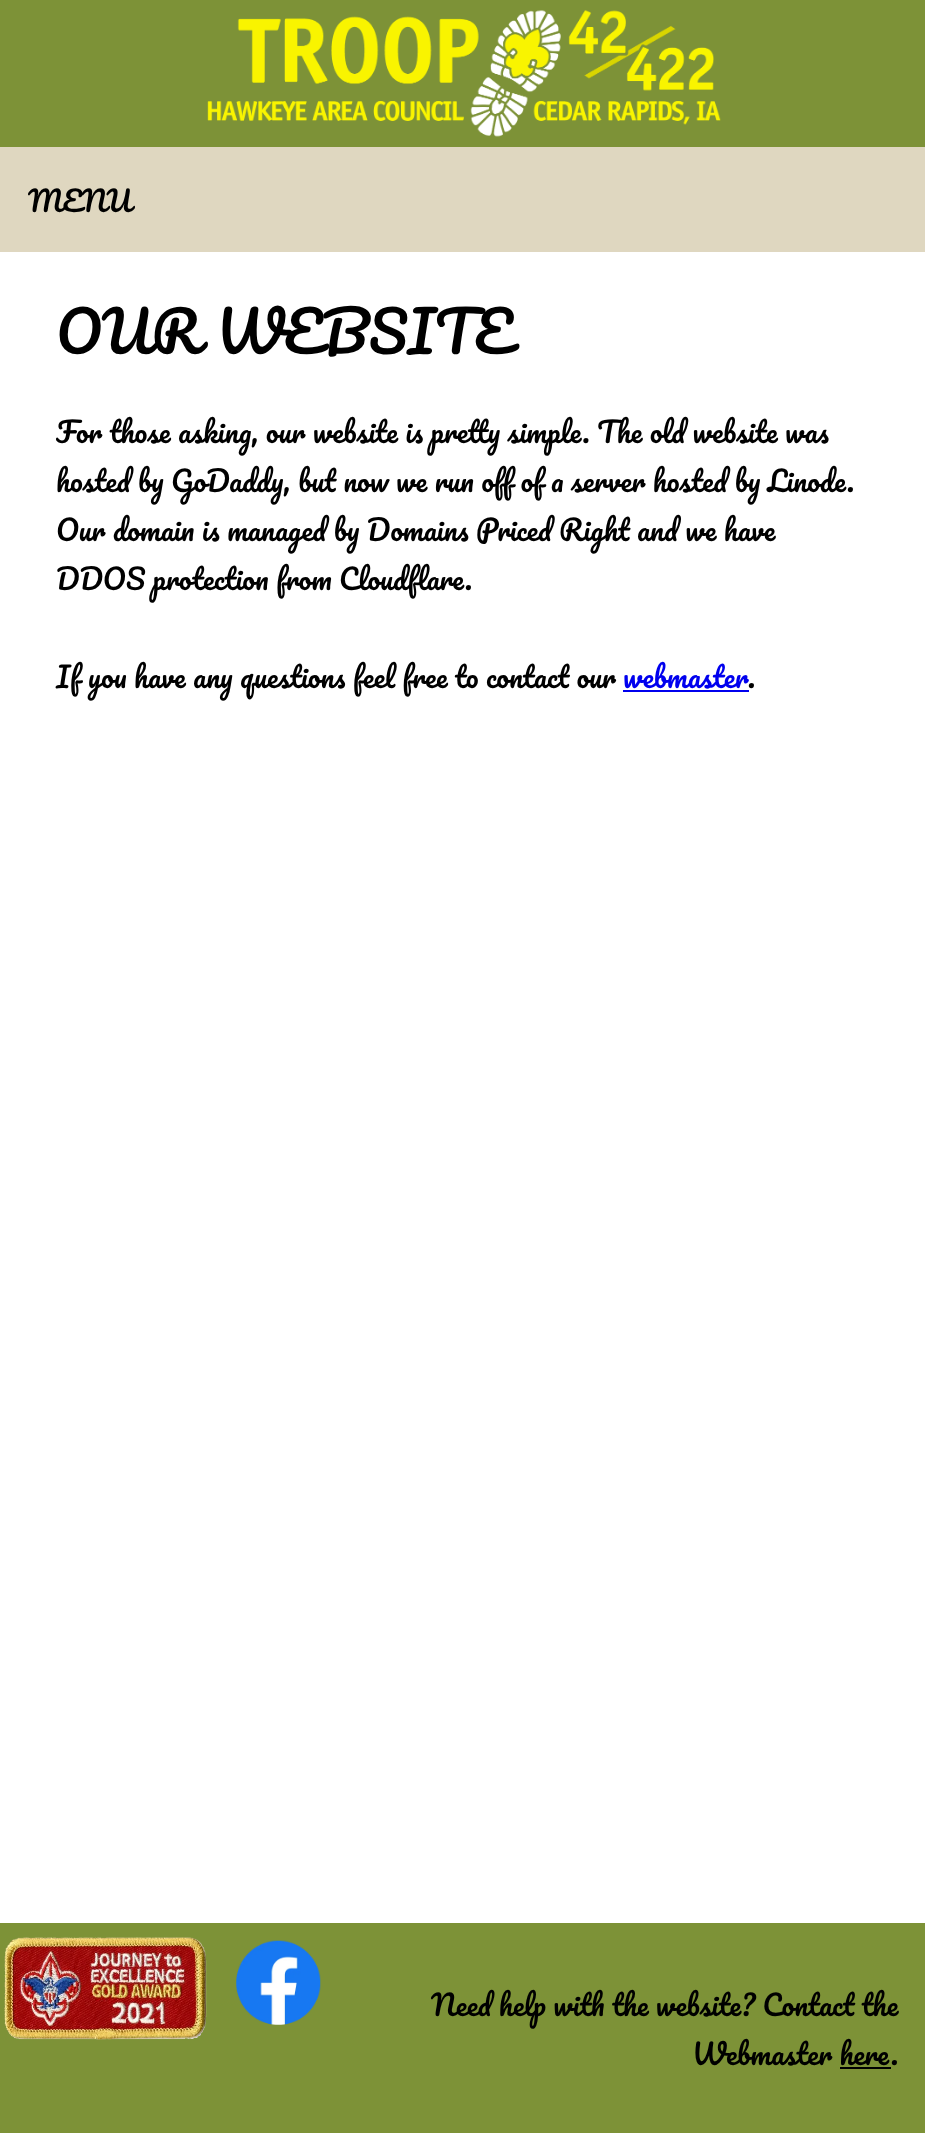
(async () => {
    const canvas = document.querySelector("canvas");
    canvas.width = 925;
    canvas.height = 2133;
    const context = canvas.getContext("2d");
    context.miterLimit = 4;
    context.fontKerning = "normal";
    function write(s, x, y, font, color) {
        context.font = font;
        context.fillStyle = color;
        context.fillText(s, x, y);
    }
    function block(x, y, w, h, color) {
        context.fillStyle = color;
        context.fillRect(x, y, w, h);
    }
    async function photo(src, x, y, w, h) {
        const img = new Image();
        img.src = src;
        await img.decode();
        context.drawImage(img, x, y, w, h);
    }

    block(0, 0, 925, 2133, "rgb(255, 255, 255)");
    block(0, 0, 925, 147, "rgb(125, 146, 55)");
    await photo("media/1.png", 207, 10, 514, 127);
    block(0, 147, 925, 105, "rgb(223, 215, 192)");
    write("MENU", 28, 212, "28px Pacifico", "rgb(0, 0, 0)");
    write("OUR WEBSITE", 56, 354, "56px Pacifico", "rgb(0, 0, 0)");
    write("For those asking, our website is pretty simple. The old website was", 56, 443, "28px Pacifico", "rgb(0, 0, 0)");
    write("hosted by GoDaddy, but now we run off of a server hosted by Linode.", 56, 492, "28px Pacifico", "rgb(0, 0, 0)");
    write("Our domain is managed by Domains Priced Right and we have", 56, 541, "28px Pacifico", "rgb(0, 0, 0)");
    write("DDOS protection from Cloudflare.", 56, 590, "28px Pacifico", "rgb(0, 0, 0)");
    write("If you have any questions feel free to contact our", 56, 688, "28px Pacifico", "rgb(0, 0, 0)");
    write("webmaster", 623, 688, "28px Pacifico", "rgb(0, 0, 238)");
    block(623, 690, 126, 2, "rgb(0, 0, 238)");
    write(".", 748, 688, "28px Pacifico", "rgb(0, 0, 0)");
    block(0, 1923, 925, 210, "rgb(125, 146, 55)");
    await photo("media/2.png", 4, 1937, 203, 103);
    await photo("media/3.png", 236, 1940, 85, 85);
    write("Need help with the website? Contact the", 431, 2016, "28px Pacifico", "rgb(0, 0, 0)");
    write("Webmaster here", 692, 2065, "28px Pacifico", "rgb(0, 0, 0)");
    write(".", 891, 2065, "28px Pacifico", "rgb(0, 0, 0)");
    block(840, 2067, 51, 2, "rgb(0, 0, 0)");
})();
